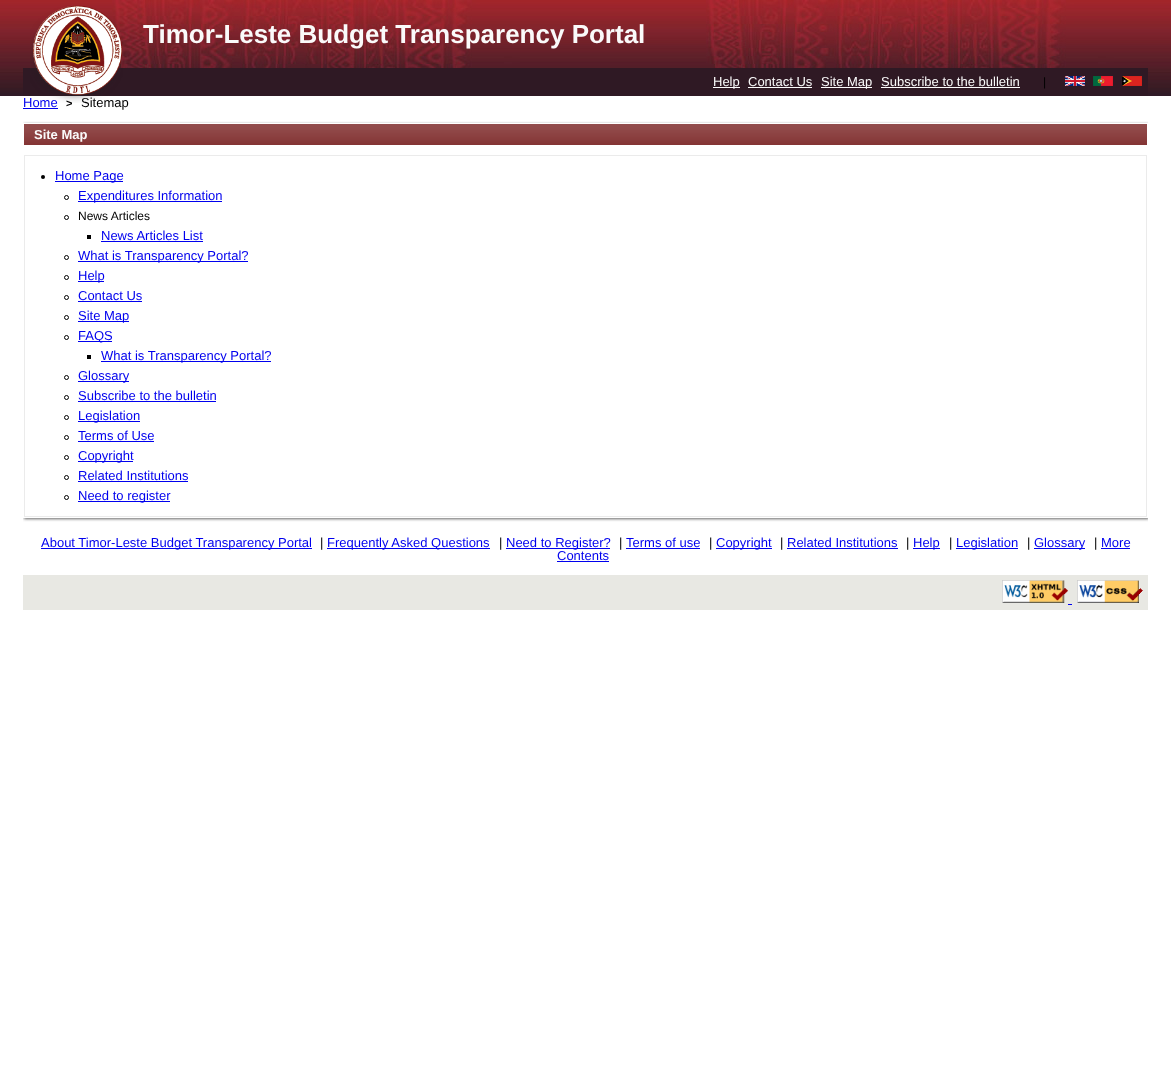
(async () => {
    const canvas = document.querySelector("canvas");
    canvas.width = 1171;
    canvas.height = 1074;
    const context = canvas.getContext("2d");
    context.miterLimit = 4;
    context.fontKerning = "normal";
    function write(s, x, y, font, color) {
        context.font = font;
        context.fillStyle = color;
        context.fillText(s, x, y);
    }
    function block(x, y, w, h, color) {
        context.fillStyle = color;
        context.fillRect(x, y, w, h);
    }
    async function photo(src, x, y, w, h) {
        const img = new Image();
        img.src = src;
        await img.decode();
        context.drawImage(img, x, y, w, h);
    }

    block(0, 0, 1171, 1074, "rgb(255, 255, 255)");
    await photo("media/1.png", 0, 0, 1171, 96);
    block(23, 68, 1125, 28, "rgb(47, 25, 36)");
    write("Home", 23, 107, "13px Liberation Sans", "rgb(0, 0, 238)");
    write(">", 66, 107, "bold 11px Liberation Sans", "rgb(0, 0, 0)");
    write("Sitemap", 81, 107, "13px Liberation Sans", "rgb(0, 0, 0)");
    await photo("media/2.png", 30, 5, 93, 98);
    write("Timor-Leste Budget Transparency Portal", 143, 43, "bold 26px Liberation Sans", "rgb(250, 250, 250)");
    block(713, 87, 27, 1, "rgb(252, 252, 252)");
    write("Help", 713, 86, "13px Liberation Sans", "rgb(250, 250, 250)");
    write("Contact Us", 748, 86, "13px Liberation Sans", "rgb(250, 250, 250)");
    block(748, 87, 64, 1, "rgb(252, 252, 252)");
    block(821, 87, 51, 1, "rgb(252, 252, 252)");
    write("Site Map", 821, 86, "13px Liberation Sans", "rgb(250, 250, 250)");
    write("Subscribe to the bulletin", 881, 86, "13px Liberation Sans", "rgb(250, 250, 250)");
    block(881, 87, 139, 1, "rgb(252, 252, 252)");
    write("|", 1043, 86, "12px Liberation Sans", "rgb(0, 0, 0)");
    await photo("media/3.png", 1065, 76, 20, 10);
    await photo("media/4.png", 1093, 76, 20, 10);
    await photo("media/5.png", 1122, 76, 20, 10);
    block(23, 108, 35, 1, "rgb(0, 0, 238)");
    context.save();
    context.beginPath();
    context.rect(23, 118, 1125, 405);
    context.clip();
    context.beginPath();
    context.moveTo(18, 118);
    context.lineTo(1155, 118);
    context.lineTo(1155, 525);
    context.lineTo(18, 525);
    context.closePath();
    context.moveTo(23, 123);
    context.lineTo(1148, 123);
    context.lineTo(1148, 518);
    context.lineTo(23, 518);
    context.closePath();
    context.clip("evenodd");
    context.fillStyle = "rgb(102, 102, 102)";
    context.filter = "blur(1.5px)";
    context.beginPath();
    context.rect(24, 124, 1125, 395);
    context.fill();
    context.filter = "none";
    context.restore();
    block(24, 124, 1123, 21, "rgb(110, 16, 16)");
    await photo("media/6.png", 24, 124, 1123, 21);
    write("Site Map", 34, 139, "bold 13px Liberation Sans", "rgb(250, 250, 250)");
    context.strokeStyle = "rgb(235, 235, 235)";
    context.strokeRect(24.5, 155.5, 1122, 361);
    context.fillStyle = "rgb(0, 0, 0)";
    context.beginPath();
    context.arc(43, 177, 2, 0, Math.PI * 2);
    context.fill();
    block(55, 181, 68, 1, "rgb(0, 0, 238)");
    write("Home Page", 55, 180, "13px Liberation Sans", "rgb(0, 0, 238)");
    context.beginPath();
    context.arc(66.5, 197.5, 2, 0, Math.PI * 2);
    context.strokeStyle = "rgb(0, 0, 0)";
    context.stroke();
    block(78, 201, 144, 1, "rgb(0, 0, 238)");
    write("Expenditures Information", 78, 200, "13px Liberation Sans", "rgb(0, 0, 238)");
    context.beginPath();
    context.arc(66.5, 217.5, 2, 0, Math.PI * 2);
    context.stroke();
    write("News Articles", 78, 220, "12px Liberation Sans", "rgb(0, 0, 0)");
    block(87, 235, 4, 4, "rgb(0, 0, 0)");
    write("News Articles List", 101, 240, "13px Liberation Sans", "rgb(0, 0, 238)");
    block(101, 241, 102, 1, "rgb(0, 0, 238)");
    context.beginPath();
    context.arc(66.5, 257.5, 2, 0, Math.PI * 2);
    context.stroke();
    block(78, 261, 170, 1, "rgb(0, 0, 238)");
    write("What is Transparency Portal?", 78, 260, "13px Liberation Sans", "rgb(0, 0, 238)");
    context.beginPath();
    context.arc(66.5, 277.5, 2, 0, Math.PI * 2);
    context.stroke();
    block(78, 281, 26, 1, "rgb(0, 0, 238)");
    write("Help", 78, 280, "13px Liberation Sans", "rgb(0, 0, 238)");
    context.beginPath();
    context.arc(66.5, 297.5, 2, 0, Math.PI * 2);
    context.stroke();
    write("Contact Us", 78, 300, "13px Liberation Sans", "rgb(0, 0, 238)");
    block(78, 301, 64, 1, "rgb(0, 0, 238)");
    context.beginPath();
    context.arc(66.5, 317.5, 2, 0, Math.PI * 2);
    context.stroke();
    block(78, 321, 51, 1, "rgb(0, 0, 238)");
    write("Site Map", 78, 320, "13px Liberation Sans", "rgb(0, 0, 238)");
    context.beginPath();
    context.arc(66.5, 337.5, 2, 0, Math.PI * 2);
    context.stroke();
    block(78, 341, 34, 1, "rgb(0, 0, 238)");
    write("FAQS", 78, 340, "13px Liberation Sans", "rgb(0, 0, 238)");
    block(87, 355, 4, 4, "rgb(0, 0, 0)");
    block(101, 361, 170, 1, "rgb(0, 0, 238)");
    write("What is Transparency Portal?", 101, 360, "13px Liberation Sans", "rgb(0, 0, 238)");
    context.beginPath();
    context.arc(66.5, 377.5, 2, 0, Math.PI * 2);
    context.stroke();
    block(78, 381, 51, 1, "rgb(0, 0, 238)");
    write("Glossary", 78, 380, "13px Liberation Sans", "rgb(0, 0, 238)");
    context.beginPath();
    context.arc(66.5, 397.5, 2, 0, Math.PI * 2);
    context.stroke();
    write("Subscribe to the bulletin", 78, 400, "13px Liberation Sans", "rgb(0, 0, 238)");
    block(78, 401, 138, 1, "rgb(0, 0, 238)");
    context.beginPath();
    context.arc(66.5, 417.5, 2, 0, Math.PI * 2);
    context.stroke();
    block(78, 421, 62, 1, "rgb(0, 0, 238)");
    write("Legislation", 78, 420, "13px Liberation Sans", "rgb(0, 0, 238)");
    context.beginPath();
    context.arc(66.5, 437.5, 2, 0, Math.PI * 2);
    context.stroke();
    write("Terms of Use", 78, 440, "13px Liberation Sans", "rgb(0, 0, 238)");
    block(78, 441, 76, 1, "rgb(0, 0, 238)");
    context.beginPath();
    context.arc(66.5, 457.5, 2, 0, Math.PI * 2);
    context.stroke();
    block(78, 461, 55, 1, "rgb(0, 0, 238)");
    write("Copyright", 78, 460, "13px Liberation Sans", "rgb(0, 0, 238)");
    context.beginPath();
    context.arc(66.5, 477.5, 2, 0, Math.PI * 2);
    context.stroke();
    write("Related Institutions", 78, 480, "13px Liberation Sans", "rgb(0, 0, 238)");
    block(78, 481, 110, 1, "rgb(0, 0, 238)");
    context.beginPath();
    context.arc(66.5, 497.5, 2, 0, Math.PI * 2);
    context.stroke();
    block(78, 501, 92, 1, "rgb(0, 0, 238)");
    write("Need to register", 78, 500, "13px Liberation Sans", "rgb(0, 0, 238)");
    block(41, 548, 271, 1, "rgb(0, 0, 238)");
    write("About Timor-Leste Budget Transparency Portal", 41, 547, "13px Liberation Sans", "rgb(0, 0, 238)");
    write("|", 320, 547, "13px Liberation Sans", "rgb(0, 0, 0)");
    block(327, 548, 163, 1, "rgb(0, 0, 238)");
    write("Frequently Asked Questions", 327, 547, "13px Liberation Sans", "rgb(0, 0, 238)");
    write("|", 499, 547, "13px Liberation Sans", "rgb(0, 0, 0)");
    block(506, 548, 104, 1, "rgb(0, 0, 238)");
    write("Need to Register?", 506, 547, "13px Liberation Sans", "rgb(0, 0, 238)");
    write("|", 619, 547, "13px Liberation Sans", "rgb(0, 0, 0)");
    write("Terms of use", 626, 547, "13px Liberation Sans", "rgb(0, 0, 238)");
    block(626, 548, 74, 1, "rgb(0, 0, 238)");
    write("|", 709, 547, "13px Liberation Sans", "rgb(0, 0, 0)");
    block(716, 548, 56, 1, "rgb(0, 0, 238)");
    write("Copyright", 716, 547, "13px Liberation Sans", "rgb(0, 0, 238)");
    write("|", 780, 547, "13px Liberation Sans", "rgb(0, 0, 0)");
    write("Related Institutions", 787, 547, "13px Liberation Sans", "rgb(0, 0, 238)");
    block(787, 548, 111, 1, "rgb(0, 0, 238)");
    write("|", 906, 547, "13px Liberation Sans", "rgb(0, 0, 0)");
    block(913, 548, 27, 1, "rgb(0, 0, 238)");
    write("Help", 913, 547, "13px Liberation Sans", "rgb(0, 0, 238)");
    write("|", 949, 547, "13px Liberation Sans", "rgb(0, 0, 0)");
    block(956, 548, 62, 1, "rgb(0, 0, 238)");
    write("Legislation", 956, 547, "13px Liberation Sans", "rgb(0, 0, 238)");
    write("|", 1027, 547, "13px Liberation Sans", "rgb(0, 0, 0)");
    block(1034, 548, 51, 1, "rgb(0, 0, 238)");
    write("Glossary", 1034, 547, "13px Liberation Sans", "rgb(0, 0, 238)");
    write("|", 1094, 547, "13px Liberation Sans", "rgb(0, 0, 0)");
    write("More", 1101, 547, "13px Liberation Sans", "rgb(0, 0, 238)");
    block(1101, 548, 29, 1, "rgb(0, 0, 238)");
    write("Contents", 557, 560, "13px Liberation Sans", "rgb(0, 0, 238)");
    block(557, 561, 52, 1, "rgb(0, 0, 238)");
    block(23, 575, 1125, 35, "rgb(232, 232, 227)");
    await photo("media/7.png", 1002, 580, 66, 23);
    await photo("media/8.png", 1077, 580, 66, 23);
    block(1068, 604, 4, 1, "rgb(0, 0, 238)");
})();
